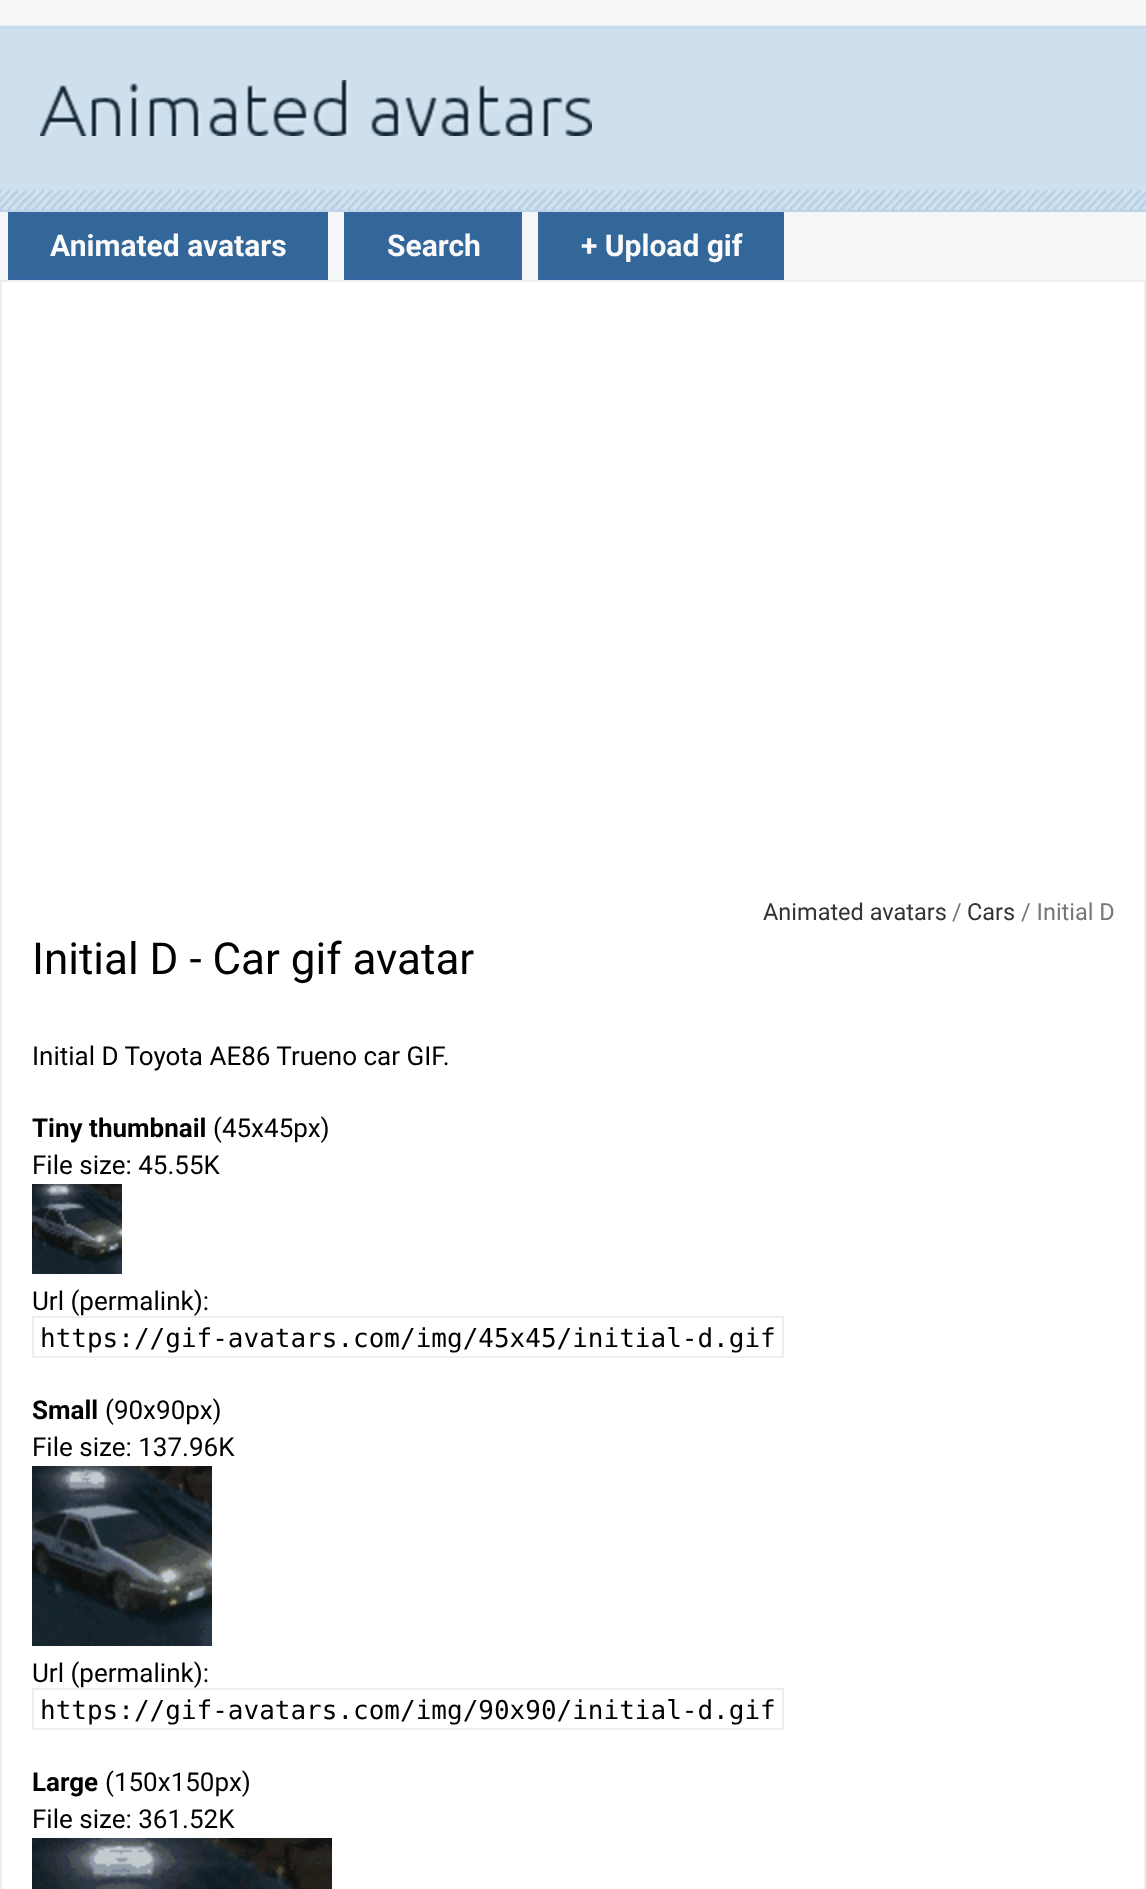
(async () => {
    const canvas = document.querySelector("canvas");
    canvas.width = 1146;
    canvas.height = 1889;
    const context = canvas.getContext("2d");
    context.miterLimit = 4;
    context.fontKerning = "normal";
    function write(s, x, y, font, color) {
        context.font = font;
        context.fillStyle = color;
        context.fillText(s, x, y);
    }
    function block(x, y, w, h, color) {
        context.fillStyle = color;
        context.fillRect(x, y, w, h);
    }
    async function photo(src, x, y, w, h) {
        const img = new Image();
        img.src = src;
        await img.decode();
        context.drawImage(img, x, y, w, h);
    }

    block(0, 0, 1146, 1889, "rgb(245, 246, 247)");
    await photo("media/1.png", 0, 25, 1146, 187);
    await photo("media/2.png", 40, 80, 552, 56);
    context.fillStyle = "rgb(51, 102, 153)";
    context.beginPath();
    context.rect(9, 213, 318, 66);
    context.fill();
    context.strokeStyle = "rgb(56, 102, 163)";
    context.lineWidth = 2;
    context.stroke();
    write("Animated avatars", 50, 256, "bold 30px Roboto", "rgb(250, 250, 250)");
    context.fillStyle = "rgb(51, 102, 153)";
    context.beginPath();
    context.rect(345, 213, 176, 66);
    context.fill();
    context.stroke();
    write("Search", 387, 256, "bold 30px Roboto", "rgb(250, 250, 250)");
    context.fillStyle = "rgb(51, 102, 153)";
    context.beginPath();
    context.rect(539, 213, 244, 66);
    context.fill();
    context.stroke();
    write("+ Upload gif", 581, 256, "bold 30px Roboto", "rgb(250, 250, 250)");
    context.fillStyle = "rgb(255, 255, 255)";
    context.beginPath();
    context.rect(1, 281, 1144, 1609);
    context.fill();
    context.strokeStyle = "rgb(238, 238, 238)";
    context.stroke();
    write("Animated avatars", 763, 920, "23.5px Roboto", "rgb(51, 51, 51)");
    write("/", 952, 920, "23.5px Roboto", "rgb(119, 119, 119)");
    write("Cars", 967, 920, "23.5px Roboto", "rgb(51, 51, 51)");
    write("/ Initial D", 1021, 920, "23.5px Roboto", "rgb(119, 119, 119)");
    write("Initial D - Car gif avatar", 32, 974, "44px Roboto", "rgb(0, 0, 0)");
    write("Initial D Toyota AE86 Trueno car GIF.", 32, 1065, "26px Roboto", "rgb(0, 0, 0)");
    write("Tiny thumbnail", 32, 1137, "bold 26px Roboto", "rgb(0, 0, 0)");
    write("(45x45px)", 213, 1137, "26px Roboto", "rgb(0, 0, 0)");
    write("File size: 45.55K", 32, 1174, "26px Roboto", "rgb(0, 0, 0)");
    await photo("media/3.png", 32, 1184, 90, 90);
    write("Url (permalink):", 32, 1310, "26px Roboto", "rgb(0, 0, 0)");
    context.strokeRect(33, 1317, 750, 40);
    write("https://gif-avatars.com/img/45x45/initial-d.gif", 40, 1347, "26px DejaVu Sans Mono", "rgb(0, 0, 0)");
    write("Small", 32, 1419, "bold 26px Roboto", "rgb(0, 0, 0)");
    write("(90x90px)", 105, 1419, "26px Roboto", "rgb(0, 0, 0)");
    write("File size: 137.96K", 32, 1456, "26px Roboto", "rgb(0, 0, 0)");
    await photo("media/4.png", 32, 1466, 180, 180);
    write("Url (permalink):", 32, 1682, "26px Roboto", "rgb(0, 0, 0)");
    context.strokeRect(33, 1689, 750, 40);
    write("https://gif-avatars.com/img/90x90/initial-d.gif", 40, 1719, "26px DejaVu Sans Mono", "rgb(0, 0, 0)");
    write("Large", 32, 1791, "bold 26px Roboto", "rgb(0, 0, 0)");
    write("(150x150px)", 105, 1791, "26px Roboto", "rgb(0, 0, 0)");
    write("File size: 361.52K", 32, 1828, "26px Roboto", "rgb(0, 0, 0)");
    await photo("media/5.png", 32, 1838, 300, 51);
})();
